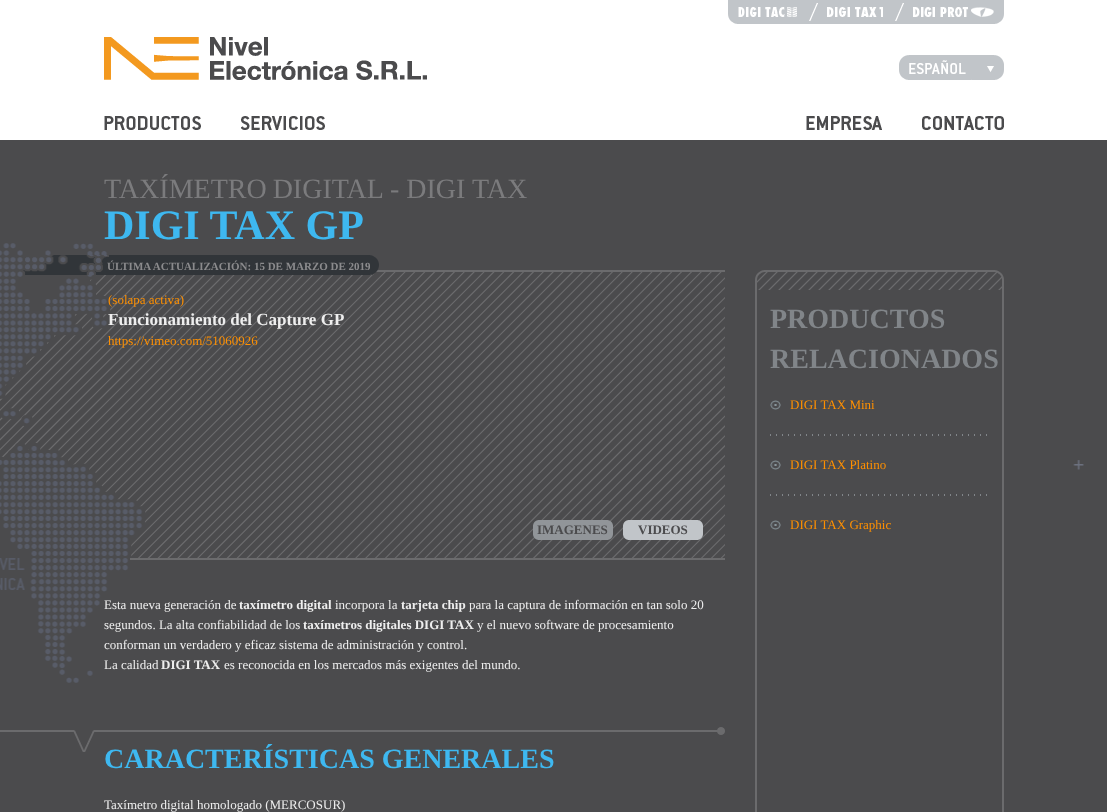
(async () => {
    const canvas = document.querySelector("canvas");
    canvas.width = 1107;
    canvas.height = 812;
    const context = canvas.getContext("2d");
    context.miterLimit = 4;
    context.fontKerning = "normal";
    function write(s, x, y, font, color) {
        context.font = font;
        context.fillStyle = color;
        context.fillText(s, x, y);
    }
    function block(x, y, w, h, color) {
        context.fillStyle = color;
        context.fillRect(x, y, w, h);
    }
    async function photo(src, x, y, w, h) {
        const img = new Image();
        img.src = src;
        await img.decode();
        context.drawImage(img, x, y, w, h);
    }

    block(0, 0, 1107, 812, "rgb(75, 75, 77)");
    block(0, 0, 1107, 140, "rgb(255, 255, 255)");
    await photo("media/1.png", 728, 0, 276, 24);
    await photo("media/2.png", 104, 37, 323, 43);
    await photo("media/3.png", 899, 55, 105, 25);
    await photo("media/4.png", 909, 60, 57, 14);
    block(971, 79, 1, 1, "rgb(197, 201, 205)");
    await photo("media/5.png", 104, 116, 97, 14);
    await photo("media/6.png", 241, 116, 84, 14);
    await photo("media/7.png", 806, 116, 76, 14);
    await photo("media/8.png", 922, 116, 82, 14);
    await photo("media/9.png", 0, 243, 1084, 440);
    await photo("media/10.png", 755, 290, 249, 522);
    context.wordSpacing = "-1px";
    write("TAXÍMETRO DIGITAL", 104, 198, "28px Liberation Serif", "rgb(123, 123, 125)");
    context.wordSpacing = "0px";
    write("- DIGI TAX", 390, 198, "28px Liberation Serif", "rgb(123, 123, 125)");
    write("DIGI TAX GP", 104, 239, "bold 42px Liberation Serif", "rgb(62, 184, 240)");
    await photo("media/13.png", 0, 270, 725, 290);
    await photo("media/11.png", 23, 255, 86, 20);
    block(109, 255, 261, 20, "rgb(49, 53, 57)");
    write("ÚLTIMA ACTUALIZACIÓN: 15 DE MARZO DE 2019", 107, 270, "bold 11px Liberation Serif", "rgb(139, 139, 141)");
    await photo("media/12.png", 370, 255, 9, 20);
    write("(solapa activa)", 108, 304, "13px Liberation Serif", "rgb(255, 144, 0)");
    write("Funcionamiento del Capture GP", 108, 325, "bold 17px Liberation Serif", "rgb(238, 238, 238)");
    write("https://vimeo.com/51060926", 108, 345, "13px Liberation Serif", "rgb(255, 144, 0)");
    await photo("media/14.png", 533, 520, 80, 20);
    write("IMAGENES", 537, 534, "bold 13px Liberation Serif", "rgb(75, 75, 77)");
    await photo("media/15.png", 623, 520, 80, 20);
    write("VIDEOS", 638, 534, "bold 13px Liberation Serif", "rgb(75, 75, 77)");
    write("Esta nueva generación de", 104, 609, "13px Liberation Serif", "rgb(238, 238, 238)");
    write("taxímetro digital", 239, 609, "bold 13px Liberation Serif", "rgb(238, 238, 238)");
    write("incorpora la", 335, 609, "13px Liberation Serif", "rgb(238, 238, 238)");
    write("tarjeta chip", 401, 609, "bold 13px Liberation Serif", "rgb(238, 238, 238)");
    write("para la captura de información en tan solo 20", 469, 609, "13px Liberation Serif", "rgb(238, 238, 238)");
    write("segundos. La alta confiabilidad de los", 104, 629, "13px Liberation Serif", "rgb(238, 238, 238)");
    write("taxímetros digitales DIGI TAX", 303, 629, "bold 13px Liberation Serif", "rgb(238, 238, 238)");
    write("y el nuevo software de procesamiento", 477, 629, "13px Liberation Serif", "rgb(238, 238, 238)");
    write("conforman un verdadero y eficaz sistema de administración y control.", 104, 649, "13px Liberation Serif", "rgb(238, 238, 238)");
    write("La calidad", 104, 669, "13px Liberation Serif", "rgb(238, 238, 238)");
    write("DIGI TAX", 161, 669, "bold 13px Liberation Serif", "rgb(238, 238, 238)");
    write("es reconocida en los mercados más exigentes del mundo.", 224, 669, "13px Liberation Serif", "rgb(238, 238, 238)");
    write("CARACTERÍSTICAS GENERALES", 104, 768, "bold 28px Liberation Serif", "rgb(62, 184, 240)");
    await photo("media/16.png", 0, 727, 725, 25);
    write("Taxímetro digital homologado (MERCOSUR)", 104, 809, "13px Liberation Serif", "rgb(238, 238, 238)");
    await photo("media/17.png", 755, 140, 249, 150);
    write("PRODUCTOS", 770, 328, "bold 28px Liberation Serif", "rgb(129, 133, 137)");
    write("RELACIONADOS", 770, 368, "bold 28px Liberation Serif", "rgb(129, 133, 137)");
    await photo("media/18.png", 770, 400, 11, 10);
    write("DIGI TAX Mini", 790, 409, "13px Liberation Serif", "rgb(255, 144, 0)");
    await photo("media/19.png", 770, 434, 217, 2);
    await photo("media/18.png", 770, 460, 11, 10);
    write("DIGI TAX Platino", 790, 469, "13px Liberation Serif", "rgb(255, 144, 0)");
    await photo("media/19.png", 770, 494, 217, 2);
    await photo("media/18.png", 770, 520, 11, 10);
    write("DIGI TAX Graphic", 790, 529, "13px Liberation Serif", "rgb(255, 144, 0)");
})();
